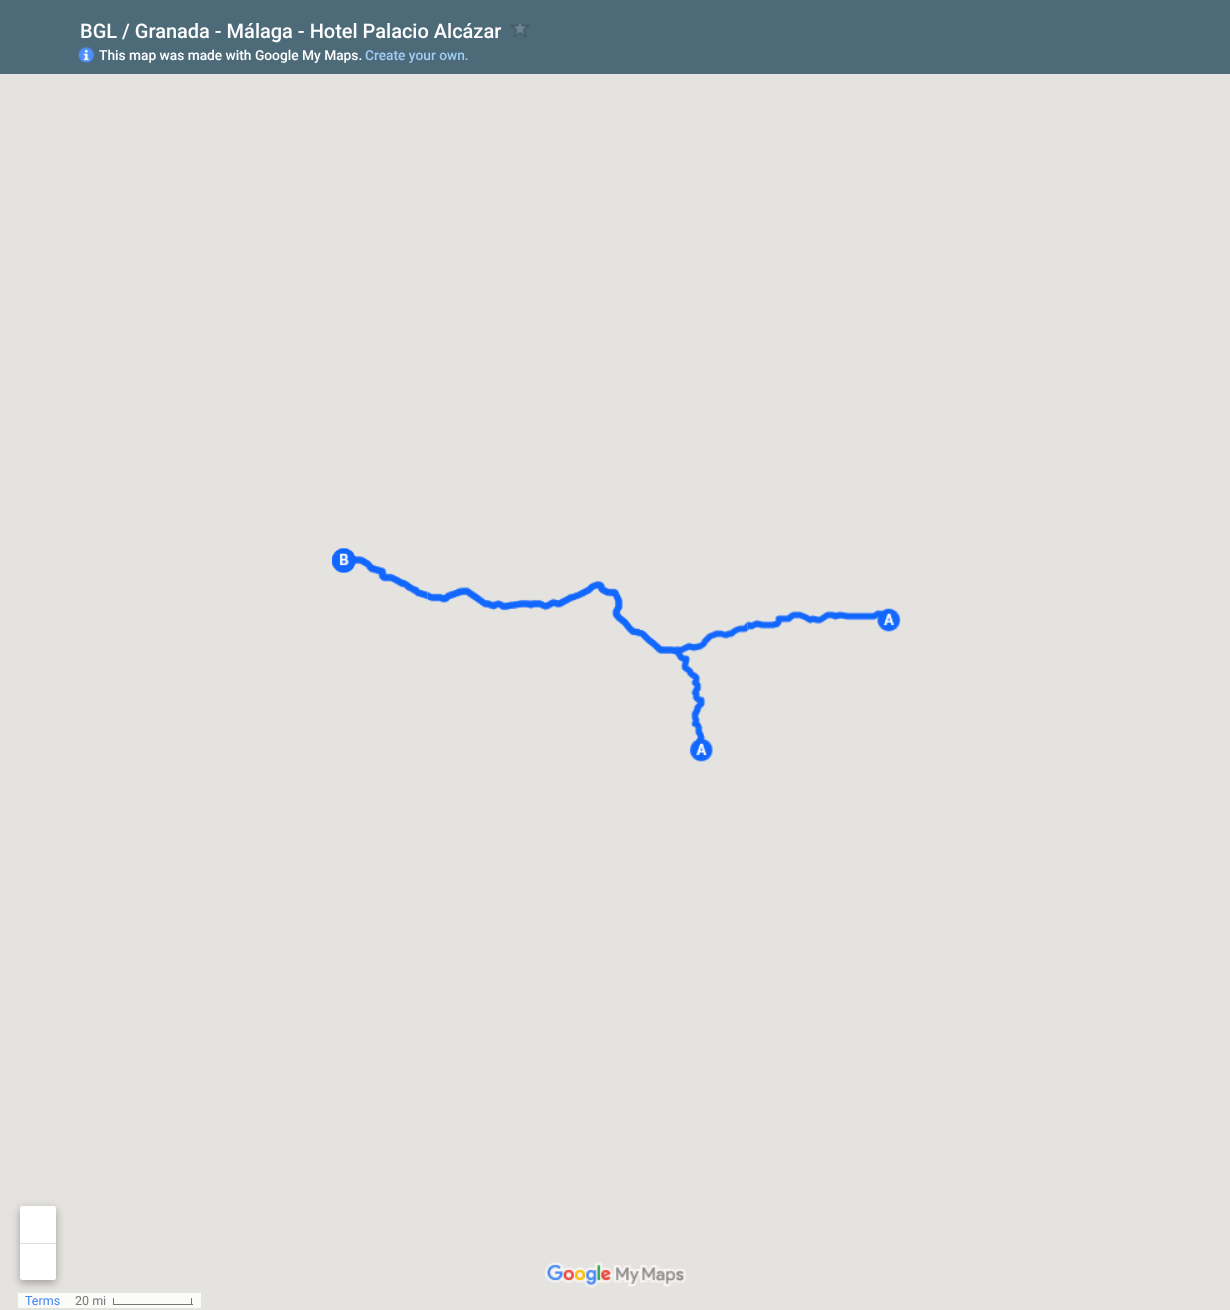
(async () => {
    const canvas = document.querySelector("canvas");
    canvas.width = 1230;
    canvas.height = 1310;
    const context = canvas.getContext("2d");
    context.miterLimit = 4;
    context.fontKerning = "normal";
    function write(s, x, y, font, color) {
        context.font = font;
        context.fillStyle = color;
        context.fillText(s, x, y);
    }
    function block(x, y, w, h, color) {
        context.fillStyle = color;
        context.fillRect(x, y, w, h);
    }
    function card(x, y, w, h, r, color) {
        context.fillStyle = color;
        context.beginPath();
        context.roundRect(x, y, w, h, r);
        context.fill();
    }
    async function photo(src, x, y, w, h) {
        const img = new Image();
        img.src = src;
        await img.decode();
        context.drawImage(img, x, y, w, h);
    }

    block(0, 0, 1230, 1310, "rgb(229, 227, 223)");
    block(0, 0, 1230, 74, "rgb(77, 106, 121)");
    write("BGL / Granada - Málaga - Hotel Palacio Alcázar", 80, 38, "500 20px Roboto", "rgb(255, 255, 255)");
    await photo("media/1.png", 510, 24, 20, 14);
    await photo("media/2.png", 78, 47, 16, 16);
    write("This map was made with Google My Maps.", 99, 60, "500 13.75px Roboto", "rgb(255, 255, 255)");
    write("Create your own.", 365, 60, "500 13.75px Roboto", "rgb(158, 206, 245)");
    await photo("media/11.png", 353, 556, 75, 44);
    await photo("media/3.png", 332, 548, 24, 24);
    await photo("media/4.png", 332, 548, 24, 24);
    await photo("media/5.png", 332, 548, 24, 24);
    await photo("media/7.png", 332, 552, 24, 21);
    await photo("media/8.png", 332, 552, 24, 21);
    await photo("media/6.png", 332, 548, 24, 24);
    await photo("media/12.png", 427, 581, 321, 161);
    await photo("media/13.png", 747, 609, 138, 23);
    await photo("media/9.png", 877, 608, 24, 24);
    await photo("media/10.png", 689, 738, 24, 24);
    context.fillStyle = "rgba(0, 0, 0, 0.3)";
    context.filter = "blur(4px)";
    context.beginPath();
    context.roundRect(20, 1209, 36, 74, 2.5);
    context.fill();
    context.filter = "none";
    card(20, 1206, 36, 74, 2.5, "rgb(255, 255, 255)");
    block(20, 1243, 36, 1, "rgb(221, 221, 221)");
    await photo("media/14.png", 545, 1262, 142, 26);
    block(18, 1293, 183, 15, "rgb(251, 251, 250)");
    write("Terms", 25, 1305, "12.5px Roboto", "rgb(66, 133, 244)");
    write("20 mi", 75, 1305, "12.5px Roboto", "rgb(119, 119, 119)");
    block(113, 1304, 80, 1, "rgb(119, 119, 119)");
    block(113, 1298, 1, 7, "rgb(119, 119, 119)");
    block(191, 1298, 1, 7, "rgb(119, 119, 119)");
})();
